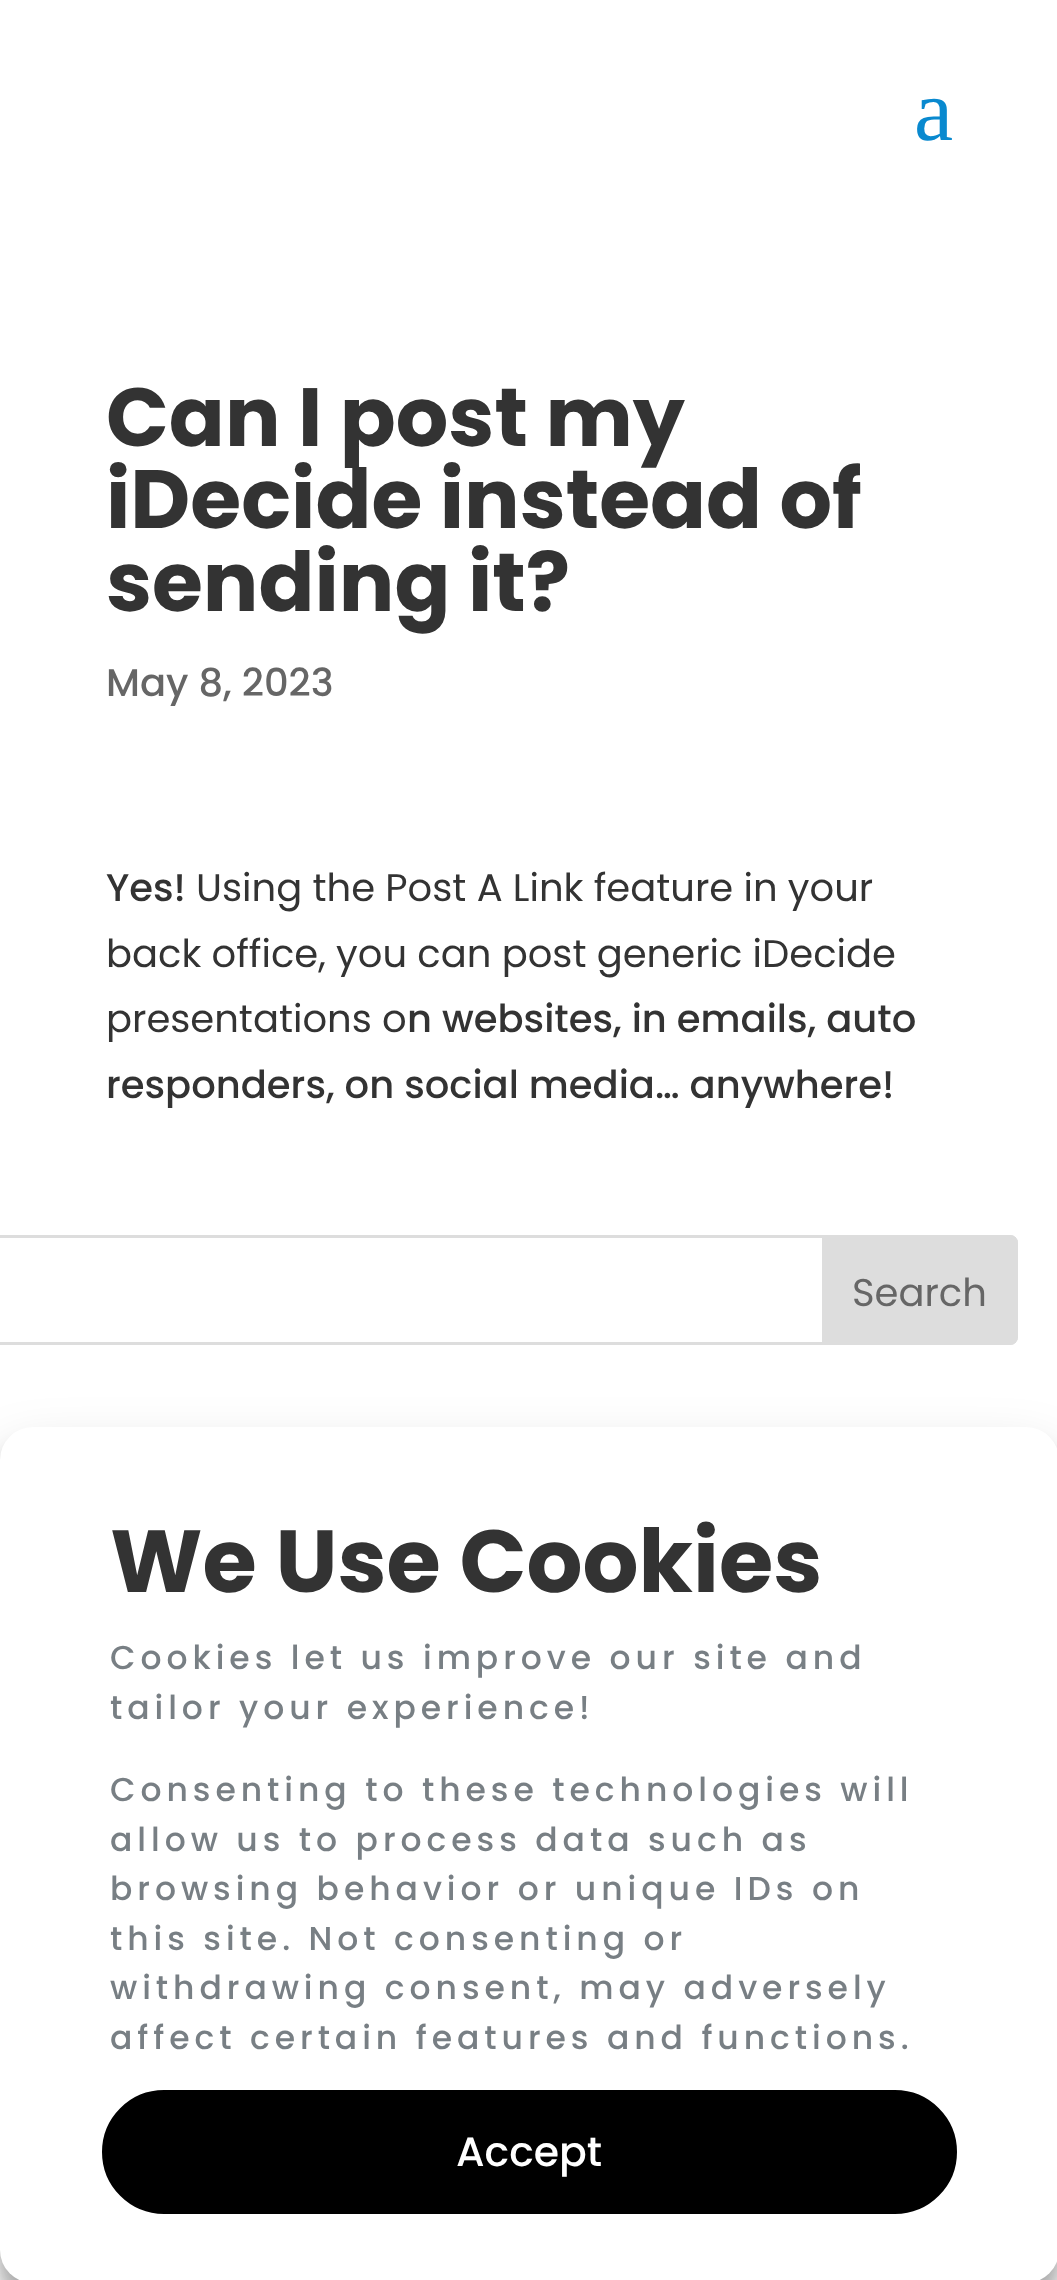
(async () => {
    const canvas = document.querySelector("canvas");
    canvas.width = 1057;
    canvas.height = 2280;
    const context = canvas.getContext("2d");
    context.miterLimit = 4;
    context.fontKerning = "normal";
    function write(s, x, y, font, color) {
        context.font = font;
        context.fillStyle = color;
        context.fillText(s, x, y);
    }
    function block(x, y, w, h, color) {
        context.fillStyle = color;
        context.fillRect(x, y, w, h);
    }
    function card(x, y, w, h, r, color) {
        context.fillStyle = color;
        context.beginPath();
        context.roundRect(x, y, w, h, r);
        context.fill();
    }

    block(0, 0, 1057, 2280, "rgb(255, 255, 255)");
    write("a", 914, 140, "88px Liberation Serif", "rgb(9, 137, 207)");
    write("Can I post my", 106, 446, "bold 82.5px Poppins", "rgb(51, 51, 51)");
    write("iDecide instead of", 106, 528, "bold 82.5px Poppins", "rgb(51, 51, 51)");
    write("sending it?", 106, 611, "bold 82.5px Poppins", "rgb(51, 51, 51)");
    write("May 8, 2023", 106, 696, "500 38.5px Poppins", "rgb(102, 102, 102)");
    write("Yes!", 106, 901, "500 38.5px Poppins", "rgb(51, 51, 51)");
    write("Using the Post A Link feature in your", 196, 901, "38.5px Poppins", "rgb(51, 51, 51)");
    write("back office, you can post generic iDecide", 106, 967, "38.5px Poppins", "rgb(51, 51, 51)");
    write("presentations o", 106, 1032, "38.5px Poppins", "rgb(51, 51, 51)");
    write("n websites, in emails, auto", 407, 1032, "500 38.5px Poppins", "rgb(51, 51, 51)");
    write("responders, on social media… anywhere!", 106, 1098, "500 38.5px Poppins", "rgb(51, 51, 51)");
    context.beginPath();
    context.roundRect(-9.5, 1236.5, 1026, 107, 6.5);
    context.strokeStyle = "rgb(221, 221, 221)";
    context.lineWidth = 3;
    context.stroke();
    context.fillStyle = "rgb(221, 221, 221)";
    context.beginPath();
    context.roundRect(823.5, 1236.5, 193, 107, [0, 6.5, 6.5, 0]);
    context.fill();
    context.stroke();
    write("Search", 852, 1306, "38.5px Poppins", "rgb(102, 102, 102)");
    context.fillStyle = "rgba(0, 0, 0, 0.23)";
    context.filter = "blur(8px)";
    context.beginPath();
    context.roundRect(0, 1444, 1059, 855, 33);
    context.fill();
    context.filter = "none";
    context.fillStyle = "rgba(0, 0, 0, 0.19)";
    context.filter = "blur(27.5px)";
    context.beginPath();
    context.roundRect(0, 1455, 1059, 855, 33);
    context.fill();
    context.filter = "none";
    card(0, 1427, 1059, 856, 33, "rgb(255, 255, 255)");
    write("We Use Cookies", 110, 1592, "bold 88px Poppins", "rgb(51, 51, 51)");
    context.letterSpacing = "4.95px";
    write("Cookies let us improve our site and", 110, 1669, "500 33px Poppins", "rgb(120, 127, 132)");
    write("tailor your experience!", 110, 1719, "500 33px Poppins", "rgb(120, 127, 132)");
    write("Consenting to these technologies will", 110, 1801, "500 33px Poppins", "rgb(120, 127, 132)");
    write("allow us to process data such as", 110, 1851, "500 33px Poppins", "rgb(120, 127, 132)");
    write("browsing behavior or unique IDs on", 110, 1900, "500 33px Poppins", "rgb(120, 127, 132)");
    write("this site. Not consenting or", 110, 1950, "500 33px Poppins", "rgb(120, 127, 132)");
    write("withdrawing consent, may adversely", 110, 1999, "500 33px Poppins", "rgb(120, 127, 132)");
    write("affect certain features and functions.", 110, 2049, "500 33px Poppins", "rgb(120, 127, 132)");
    context.fillStyle = "rgb(0, 0, 0)";
    context.beginPath();
    context.roundRect(103.5, 2091.5, 852, 121, 60.5);
    context.fill();
    context.strokeStyle = "rgb(0, 0, 0)";
    context.stroke();
    context.letterSpacing = "0px";
    write("Accept", 456, 2166, "500 41px Poppins", "rgb(255, 255, 255)");
})();
